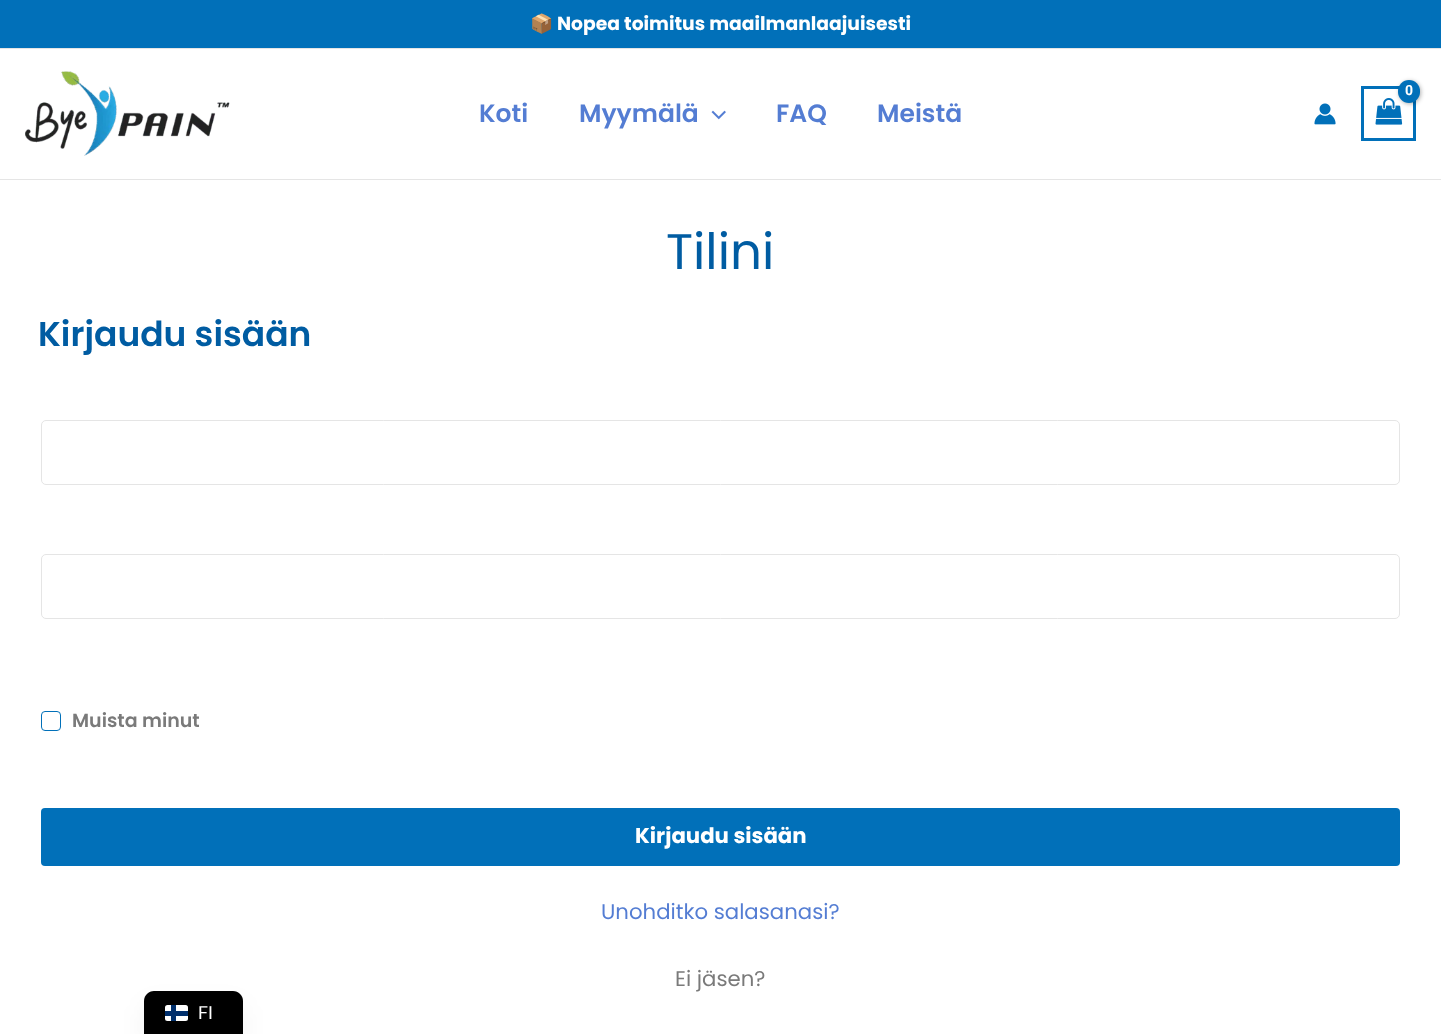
(async () => {
    const canvas = document.querySelector("canvas");
    canvas.width = 1441;
    canvas.height = 1034;
    const context = canvas.getContext("2d");
    context.miterLimit = 4;
    context.fontKerning = "normal";
    function write(s, x, y, font, color) {
        context.font = font;
        context.fillStyle = color;
        context.fillText(s, x, y);
    }
    function block(x, y, w, h, color) {
        context.fillStyle = color;
        context.fillRect(x, y, w, h);
    }
    function card(x, y, w, h, r, color) {
        context.fillStyle = color;
        context.beginPath();
        context.roundRect(x, y, w, h, r);
        context.fill();
    }
    async function photo(src, x, y, w, h) {
        const img = new Image();
        img.src = src;
        await img.decode();
        context.drawImage(img, x, y, w, h);
    }

    block(0, 0, 1441, 1034, "rgb(255, 255, 255)");
    block(0, 0, 1441, 48, "rgb(1, 112, 185)");
    block(0, 48, 1441, 1, "rgb(229, 229, 229)");
    write("📦", 530, 30, "bold 18.75px Noto Color Emoji", "rgb(255, 255, 255)");
    write("Nopea toimitus maailmanlaajuisesti", 557, 30, "bold 18.75px Poppins", "rgb(255, 255, 255)");
    block(0, 179, 1441, 1, "rgb(229, 229, 229)");
    await photo("media/1.png", 25, 71, 205, 85);
    context.strokeStyle = "rgb(1, 112, 185)";
    context.lineWidth = 3;
    context.strokeRect(1362.5, 87.5, 52, 52);
    await photo("media/2.png", 1375, 98, 28, 27);
    context.fillStyle = "rgba(0, 0, 0, 0.3)";
    context.filter = "blur(2px)";
    context.beginPath();
    context.roundRect(1399, 81, 22, 23, 11);
    context.fill();
    context.filter = "none";
    card(1398, 80, 22, 23, 11, "rgb(1, 112, 185)");
    context.letterSpacing = "-1px";
    write("0", 1405, 95, "bold 14px Roboto", "rgb(255, 255, 255)");
    await photo("media/3.png", 1314, 103, 22, 22);
    context.letterSpacing = "0px";
    write("Koti", 479, 122, "600 25px Poppins", "rgb(84, 125, 211)");
    write("Myymälä", 579, 122, "600 25px Poppins", "rgb(84, 125, 211)");
    await photo("media/4.png", 711, 110, 15, 10);
    write("FAQ", 776, 122, "600 25px Poppins", "rgb(84, 125, 211)");
    write("Meistä", 877, 122, "600 25px Poppins", "rgb(84, 125, 211)");
    write("Tilini", 666, 269, "50px Poppins", "rgb(0, 92, 162)");
    write("Kirjaudu sisään", 38, 346, "600 34.5px Poppins", "rgb(0, 92, 162)");
    context.beginPath();
    context.roundRect(41.5, 420.5, 1358, 64, 4.5);
    context.strokeStyle = "rgb(229, 229, 229)";
    context.lineWidth = 1;
    context.stroke();
    context.beginPath();
    context.roundRect(41.5, 554.5, 1358, 64, 4.5);
    context.stroke();
    context.beginPath();
    context.roundRect(41.5, 711.5, 19, 19, 3.5);
    context.strokeStyle = "rgb(1, 112, 185)";
    context.stroke();
    write("Muista minut", 72, 727, "600 19px Poppins", "rgb(122, 122, 122)");
    card(41, 808, 1359, 58, 4, "rgb(1, 112, 185)");
    write("Kirjaudu sisään", 635, 843, "bold 21.25px Poppins", "rgb(255, 255, 255)");
    write("Unohditko salasanasi?", 601, 919, "21.25px Poppins", "rgb(84, 125, 211)");
    write("Ei jäsen?", 675, 986, "21.25px Poppins", "rgb(122, 122, 122)");
    context.fillStyle = "rgba(0, 0, 0, 0.05)";
    context.filter = "blur(12.5px)";
    context.beginPath();
    context.roundRect(144, 1004, 99, 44, 10);
    context.fill();
    context.filter = "none";
    context.fillStyle = "rgb(0, 0, 0)";
    context.beginPath();
    context.moveTo(154, 991);
    context.lineTo(233, 991);
    context.bezierCurveTo(238.5, 991, 243, 995.5, 243, 1001);
    context.lineTo(243, 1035);
    context.lineTo(144, 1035);
    context.lineTo(144, 1001);
    context.bezierCurveTo(144, 995.5, 148.5, 991, 154, 991);
    context.closePath();
    context.fill();
    card(165, 1005, 23, 16, 2.5, "rgb(255, 255, 255)");
    block(165, 1011, 23, 5, "rgb(0, 47, 108)");
    block(171, 1005, 5, 16, "rgb(0, 47, 108)");
    write("FI", 198, 1019, "18px Roboto", "rgb(255, 255, 255)");
})();
